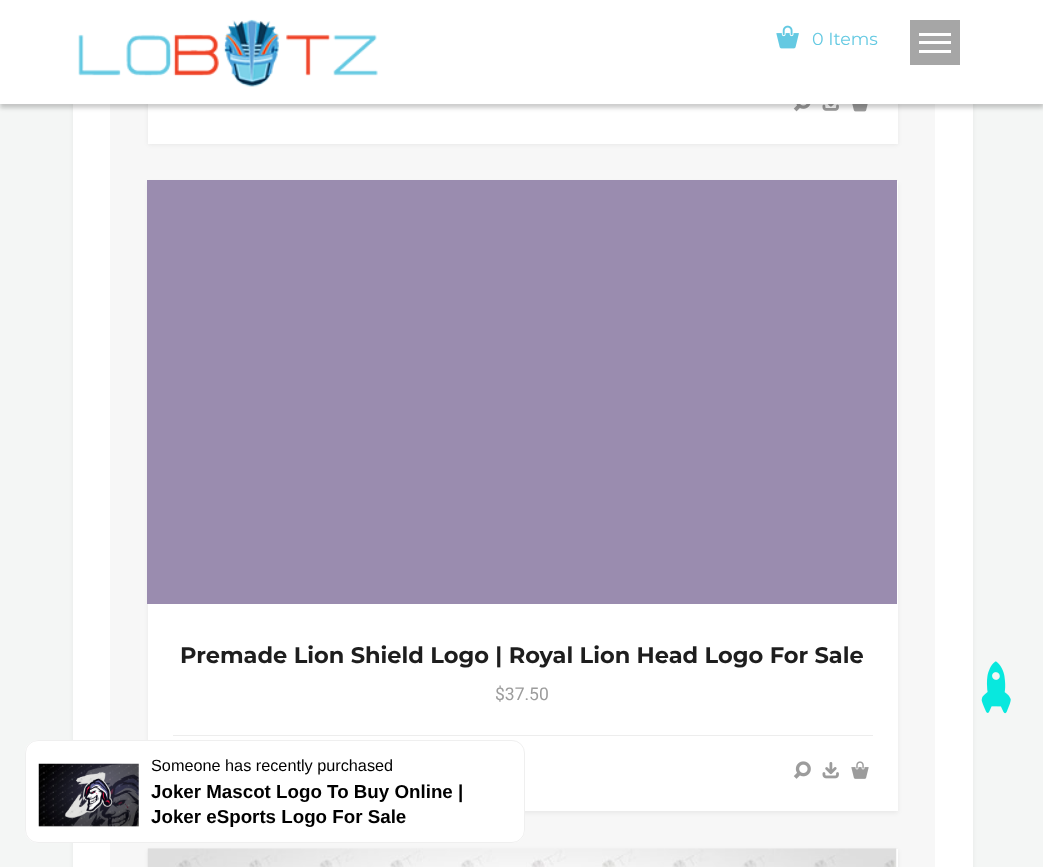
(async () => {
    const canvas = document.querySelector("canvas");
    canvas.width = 1043;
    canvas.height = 867;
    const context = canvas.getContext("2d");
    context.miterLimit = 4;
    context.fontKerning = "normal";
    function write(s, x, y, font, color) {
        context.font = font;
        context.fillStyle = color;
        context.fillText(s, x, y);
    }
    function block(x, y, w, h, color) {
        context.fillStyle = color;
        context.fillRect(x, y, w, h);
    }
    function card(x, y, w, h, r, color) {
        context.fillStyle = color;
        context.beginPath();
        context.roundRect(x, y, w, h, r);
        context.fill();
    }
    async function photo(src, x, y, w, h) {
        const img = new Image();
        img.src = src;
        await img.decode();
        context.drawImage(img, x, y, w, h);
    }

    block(0, 0, 1043, 867, "rgb(244, 246, 245)");
    context.fillStyle = "rgba(0, 0, 0, 0.06)";
    context.filter = "blur(2px)";
    context.beginPath();
    context.rect(73, -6, 900, 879);
    context.fill();
    context.filter = "none";
    block(73, 104, 900, 763, "rgb(255, 255, 255)");
    block(110, 104, 825, 763, "rgb(247, 247, 247)");
    context.fillStyle = "rgba(0, 0, 0, 0.06)";
    context.filter = "blur(2px)";
    context.beginPath();
    context.rect(148, -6, 750, 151);
    context.fill();
    context.filter = "none";
    block(148, 104, 750, 40, "rgb(255, 255, 255)");
    await photo("media/3.png", 793, 104, 18, 8);
    await photo("media/4.png", 822, 104, 17, 7);
    await photo("media/5.png", 852, 104, 16, 8);
    context.fillStyle = "rgba(0, 0, 0, 0.2)";
    context.filter = "blur(2px)";
    context.beginPath();
    context.rect(0, 4, 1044, 104);
    context.fill();
    context.filter = "none";
    block(0, 0, 1043, 104, "rgb(255, 255, 255)");
    await photo("media/1.png", 78, 19, 300, 68);
    await photo("media/2.png", 776, 25, 23, 24);
    write("0 Items", 812, 45, "17.5px Montserrat", "rgb(100, 201, 226)");
    block(910, 20, 50, 45, "rgb(166, 166, 166)");
    block(919, 33, 32, 3, "rgb(255, 255, 255)");
    block(919, 41, 32, 3, "rgb(255, 255, 255)");
    block(919, 50, 32, 3, "rgb(255, 255, 255)");
    context.fillStyle = "rgba(0, 0, 0, 0.06)";
    context.filter = "blur(2px)";
    context.beginPath();
    context.rect(148, 183, 750, 630);
    context.fill();
    context.filter = "none";
    block(148, 181, 750, 630, "rgb(255, 255, 255)");
    block(147, 180, 750, 424, "rgb(154, 140, 175)");
    write("Premade Lion Shield Logo | Royal Lion Head Logo For Sale", 180, 663, "bold 22.5px Montserrat", "rgb(30, 30, 30)");
    write("$37.50", 495, 700, "17.5px Roboto", "rgb(156, 156, 156)");
    block(173, 735, 700, 1, "rgb(237, 237, 237)");
    await photo("media/6.png", 793, 761, 18, 18);
    await photo("media/7.png", 822, 762, 17, 17);
    await photo("media/8.png", 851, 761, 18, 18);
    context.fillStyle = "rgba(0, 0, 0, 0.06)";
    context.filter = "blur(2px)";
    context.beginPath();
    context.rect(148, 850, 750, 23);
    context.fill();
    context.filter = "none";
    block(896, 849, 2, 18, "rgb(255, 255, 255)");
    await photo("media/9.png", 147, 848, 750, 19);
    await photo("media/10.png", 981, 661, 30, 53);
    card(25, 740, 500, 103, 13, "rgb(255, 255, 255)");
    context.beginPath();
    context.roundRect(25.5, 740.5, 499, 102, 12.5);
    context.strokeStyle = "rgba(238, 238, 238, 0.93)";
    context.stroke();
    await photo("media/11.png", 38, 763, 101, 64);
    write("Someone has recently purchased", 151, 771, "16.25px Liberation Sans", "rgb(0, 0, 0)");
    write("Joker Mascot Logo To Buy Online |", 151, 798, "bold 18.75px Liberation Sans", "rgb(0, 0, 0)");
    write("Joker eSports Logo For Sale", 151, 823, "bold 18.75px Liberation Sans", "rgb(0, 0, 0)");
})();
